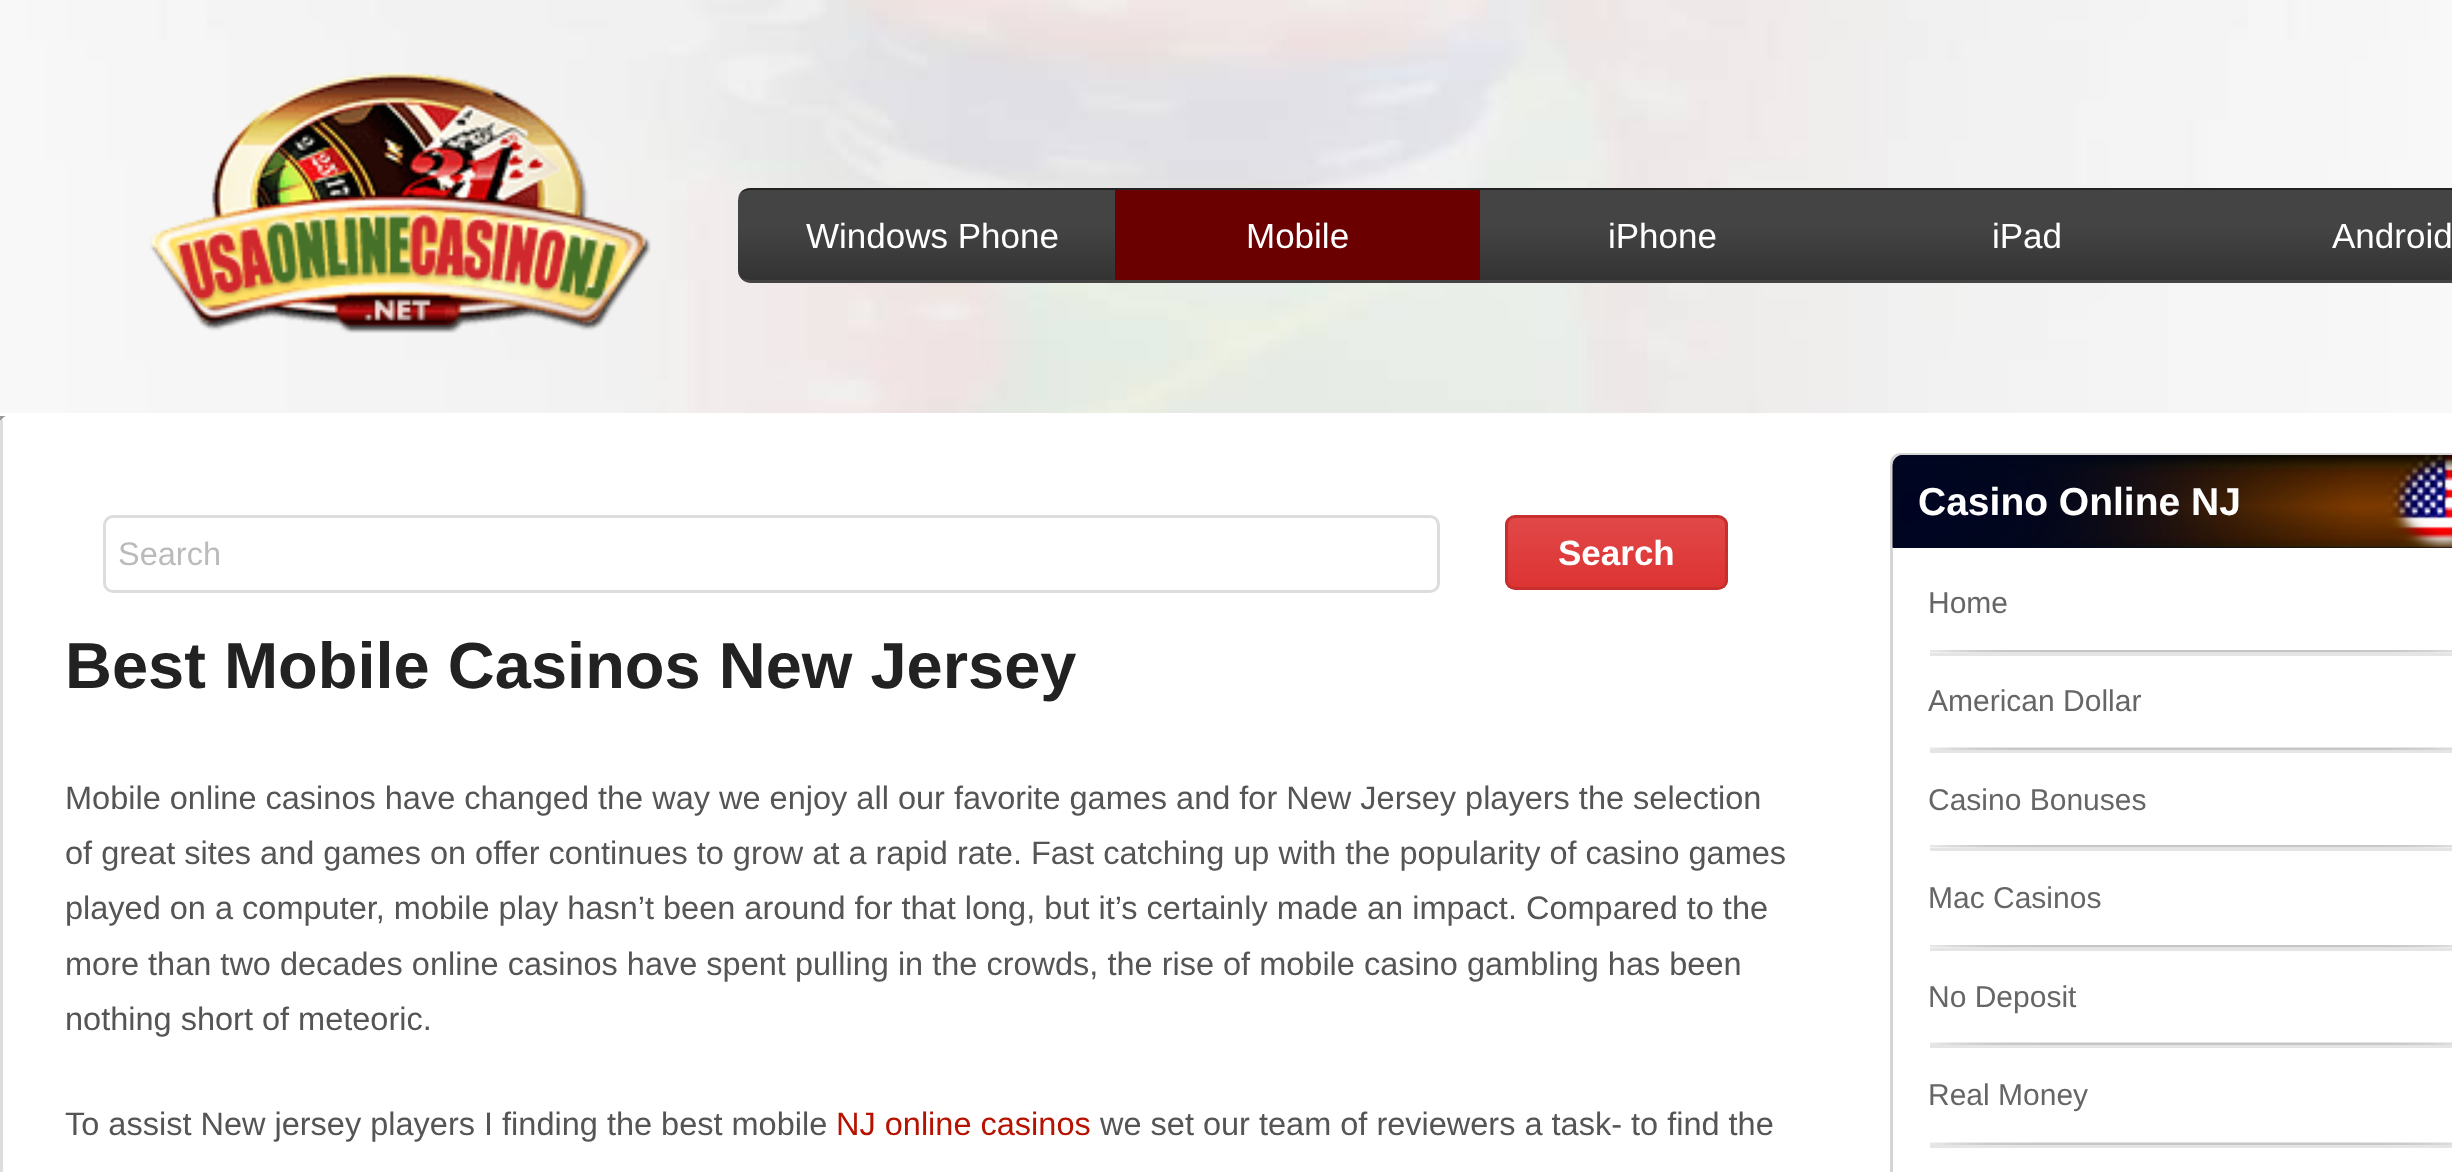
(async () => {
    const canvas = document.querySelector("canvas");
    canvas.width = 2452;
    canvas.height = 1172;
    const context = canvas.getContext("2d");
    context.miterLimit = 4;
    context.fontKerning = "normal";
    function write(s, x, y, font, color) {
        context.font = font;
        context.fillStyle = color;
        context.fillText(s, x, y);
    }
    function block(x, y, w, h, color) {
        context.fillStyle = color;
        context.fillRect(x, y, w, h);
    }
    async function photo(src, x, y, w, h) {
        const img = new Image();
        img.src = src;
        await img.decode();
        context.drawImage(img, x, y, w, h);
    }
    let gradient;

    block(0, 0, 2452, 1172, "rgb(153, 153, 153)");
    await photo("media/1.png", 0, 0, 2452, 413);
    block(0, 413, 2452, 3, "rgb(255, 255, 255)");
    await photo("media/2.png", 149, 72, 502, 261);
    context.save();
    context.beginPath();
    context.roundRect(738, 188, 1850, 95, 13);
    context.clip();
    gradient = context.createLinearGradient(1663, 190, 1663, 280);
    gradient.addColorStop(0.4, "rgb(68, 68, 68)");
    gradient.addColorStop(1, "rgb(51, 51, 51)");
    context.fillStyle = gradient;
    context.fillRect(738, 190, 1714, 90);
    gradient = context.createLinearGradient(1663, 280, 1663, 370);
    gradient.addColorStop(0.4, "rgb(68, 68, 68)");
    gradient.addColorStop(1, "rgb(51, 51, 51)");
    context.fillStyle = gradient;
    context.fillRect(738, 280, 1714, 3);
    context.restore();
    context.fillStyle = "rgb(34, 34, 34)";
    context.beginPath();
    context.moveTo(750, 188);
    context.lineTo(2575, 188);
    context.bezierCurveTo(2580, 188, 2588, 191, 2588, 197);
    context.bezierCurveTo(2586, 193, 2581, 190, 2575, 190);
    context.lineTo(750, 190);
    context.bezierCurveTo(743, 190, 738, 194, 738, 200);
    context.bezierCurveTo(738, 193, 743, 188, 750, 188);
    context.closePath();
    context.fill();
    context.fillStyle = "rgb(68, 68, 68)";
    context.beginPath();
    context.moveTo(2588, 273);
    context.bezierCurveTo(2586, 279, 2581, 282, 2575, 282);
    context.lineTo(750, 282);
    context.bezierCurveTo(743, 282, 738, 277, 738, 270);
    context.bezierCurveTo(738, 276, 743, 280, 750, 280);
    context.lineTo(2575, 280);
    context.bezierCurveTo(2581, 280, 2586, 277, 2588, 273);
    context.closePath();
    context.fill();
    write("Windows Phone", 806, 248, "35px Liberation Sans", "rgb(255, 255, 255)");
    block(1115, 190, 365, 90, "rgb(107, 0, 0)");
    write("Mobile", 1246, 248, "35px Liberation Sans", "rgb(255, 255, 255)");
    write("iPhone", 1608, 248, "35px Liberation Sans", "rgb(255, 255, 255)");
    write("iPad", 1992, 248, "35px Liberation Sans", "rgb(255, 255, 255)");
    write("Android", 2332, 248, "35px Liberation Sans", "rgb(255, 255, 255)");
    context.beginPath();
    context.moveTo(10, 415);
    context.lineTo(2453, 415);
    context.lineTo(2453, 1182);
    context.lineTo(10, 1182);
    context.bezierCurveTo(4.5, 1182, 0, 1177.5, 0, 1172);
    context.lineTo(0, 425);
    context.bezierCurveTo(0, 419.5, 4.5, 415, 10, 415);
    context.closePath();
    context.fill();
    block(0, 420, 3, 752, "rgb(221, 221, 221)");
    context.beginPath();
    context.roundRect(104.5, 516.5, 1334, 75, 8.5);
    context.strokeStyle = "rgb(221, 221, 221)";
    context.lineWidth = 3;
    context.stroke();
    write("Search", 118, 565, "32.5px Liberation Sans", "rgb(187, 187, 187)");
    gradient = context.createLinearGradient(1616, 518, 1616, 588);
    gradient.addColorStop(0, "rgb(225, 72, 72)");
    gradient.addColorStop(1, "rgb(221, 51, 51)");
    context.fillStyle = gradient;
    context.beginPath();
    context.moveTo(1505, 525);
    context.lineTo(1505, 580);
    context.bezierCurveTo(1505, 583, 1507, 586, 1509, 588);
    context.lineTo(1724, 588);
    context.bezierCurveTo(1726, 586, 1728, 583, 1728, 580);
    context.lineTo(1728, 525);
    context.bezierCurveTo(1728, 522, 1727, 520, 1725, 518);
    context.lineTo(1508, 518);
    context.bezierCurveTo(1506, 520, 1505, 522, 1505, 525);
    context.closePath();
    context.fill();
    context.beginPath();
    context.roundRect(1506.5, 516.5, 220, 72, 8.5);
    context.strokeStyle = "rgb(199, 46, 46)";
    context.stroke();
    write("Search", 1558, 565, "bold 35px Liberation Sans", "rgb(255, 255, 255)");
    write("Best Mobile Casinos New Jersey", 65, 688, "bold 65px Liberation Sans", "rgb(34, 34, 34)");
    write("Mobile online casinos have changed the way we enjoy all our favorite games and for New Jersey players the selection", 65, 809, "32.5px Liberation Sans", "rgb(85, 85, 85)");
    write("of great sites and games on offer continues to grow at a rapid rate. Fast catching up with the popularity of casino games", 65, 864, "32.5px Liberation Sans", "rgb(85, 85, 85)");
    write("played on a computer, mobile play hasn’t been around for that long, but it’s certainly made an impact. Compared to the", 65, 919, "32.5px Liberation Sans", "rgb(85, 85, 85)");
    write("more than two decades online casinos have spent pulling in the crowds, the rise of mobile casino gambling has been", 65, 975, "32.5px Liberation Sans", "rgb(85, 85, 85)");
    write("nothing short of meteoric.", 65, 1030, "32.5px Liberation Sans", "rgb(85, 85, 85)");
    write("To assist New jersey players I finding the best mobile", 65, 1135, "32.5px Liberation Sans", "rgb(85, 85, 85)");
    write("NJ online casinos", 836, 1135, "32.5px Liberation Sans", "rgb(181, 18, 0)");
    write("we set our team of reviewers a task- to find the", 1100, 1135, "32.5px Liberation Sans", "rgb(85, 85, 85)");
    context.beginPath();
    context.moveTo(1900, 454.5);
    context.lineTo(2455, 454.5);
    context.bezierCurveTo(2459.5, 454.5, 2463.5, 458.5, 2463.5, 463);
    context.lineTo(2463.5, 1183.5);
    context.lineTo(1891.5, 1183.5);
    context.lineTo(1891.5, 463);
    context.bezierCurveTo(1891.5, 458.5, 1895.5, 454.5, 1900, 454.5);
    context.closePath();
    context.strokeStyle = "rgb(213, 213, 213)";
    context.stroke();
    context.fillStyle = "rgb(0, 12, 40)";
    context.beginPath();
    context.moveTo(1903, 455);
    context.lineTo(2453, 455);
    context.lineTo(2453, 548);
    context.lineTo(1893, 548);
    context.lineTo(1893, 465);
    context.bezierCurveTo(1893, 459.5, 1897.5, 455, 1903, 455);
    context.closePath();
    context.fill();
    await photo("media/3.png", 1892, 455, 560, 93);
    write("Casino Online NJ", 1918, 515, "bold 39px Liberation Sans", "rgb(255, 255, 255)");
    await photo("media/4.png", 1930, 650, 522, 3);
    block(1930, 653, 522, 3, "rgb(229, 229, 229)");
    write("Home", 1928, 613, "30px Liberation Sans", "rgb(102, 102, 102)");
    await photo("media/5.png", 1930, 747, 522, 3);
    block(1930, 750, 522, 3, "rgb(229, 229, 229)");
    write("American Dollar", 1928, 711, "30px Liberation Sans", "rgb(102, 102, 102)");
    await photo("media/4.png", 1930, 845, 522, 3);
    block(1930, 848, 522, 3, "rgb(229, 229, 229)");
    write("Casino Bonuses", 1928, 810, "30px Liberation Sans", "rgb(102, 102, 102)");
    await photo("media/4.png", 1930, 945, 522, 3);
    block(1930, 948, 522, 3, "rgb(229, 229, 229)");
    write("Mac Casinos", 1928, 908, "30px Liberation Sans", "rgb(102, 102, 102)");
    await photo("media/5.png", 1930, 1042, 522, 3);
    block(1930, 1045, 522, 3, "rgb(229, 229, 229)");
    write("No Deposit", 1928, 1007, "30px Liberation Sans", "rgb(102, 102, 102)");
    await photo("media/5.png", 1930, 1142, 522, 3);
    block(1930, 1145, 522, 3, "rgb(229, 229, 229)");
    write("Real Money", 1928, 1105, "30px Liberation Sans", "rgb(102, 102, 102)");
})();
